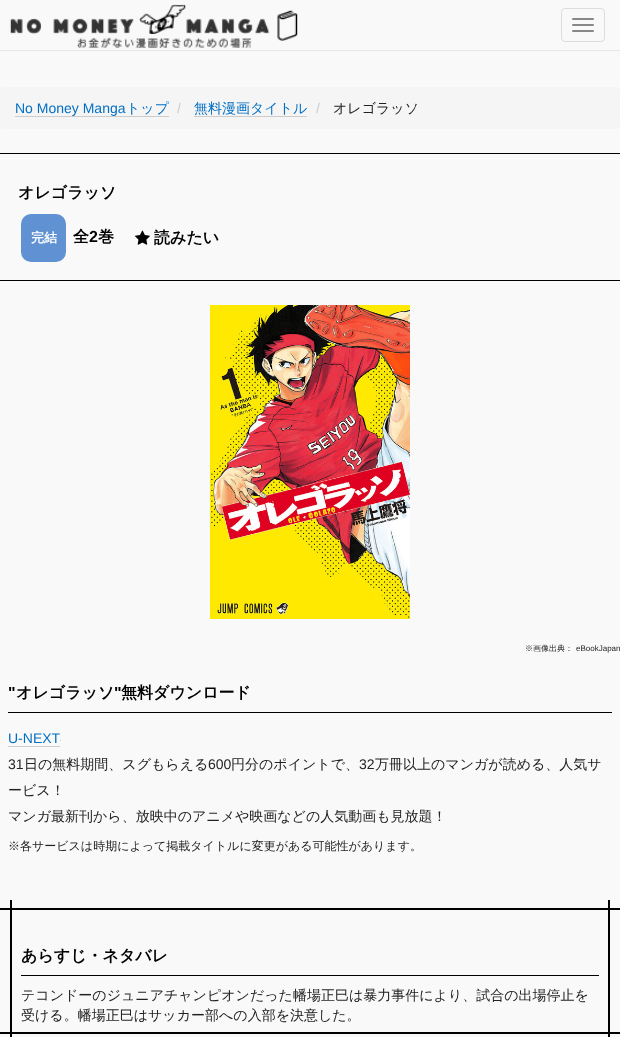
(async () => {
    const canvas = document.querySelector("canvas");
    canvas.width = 620;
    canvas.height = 1037;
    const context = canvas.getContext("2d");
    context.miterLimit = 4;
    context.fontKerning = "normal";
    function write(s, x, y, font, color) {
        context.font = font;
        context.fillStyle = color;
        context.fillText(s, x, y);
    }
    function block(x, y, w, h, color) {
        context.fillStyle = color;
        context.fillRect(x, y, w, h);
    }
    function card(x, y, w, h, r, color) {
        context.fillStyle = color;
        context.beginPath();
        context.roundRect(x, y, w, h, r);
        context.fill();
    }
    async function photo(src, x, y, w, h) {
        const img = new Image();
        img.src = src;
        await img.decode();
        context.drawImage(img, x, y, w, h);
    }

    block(0, 0, 620, 1037, "rgb(249, 249, 249)");
    block(0, 50, 620, 1, "rgb(231, 231, 231)");
    await photo("media/1.png", 9, 4, 289, 44);
    context.beginPath();
    context.roundRect(561.5, 8.5, 43, 33, 3.5);
    context.strokeStyle = "rgb(221, 221, 221)";
    context.stroke();
    card(572, 18, 22, 2, 1, "rgb(136, 136, 136)");
    card(572, 24, 22, 2, 1, "rgb(136, 136, 136)");
    card(572, 30, 22, 2, 1, "rgb(136, 136, 136)");
    card(0, 87, 620, 42, 4, "rgb(245, 245, 245)");
    write("No Money Manga", 15, 113, "14px Liberation Sans", "rgb(0, 110, 195)");
    block(15, 116, 154, 1, "rgb(204, 204, 204)");
    write("トップ", 126, 113, "500 14px WenQuanYi Zen Hei", "rgb(0, 110, 195)");
    write("/", 177, 113, "14px Liberation Sans", "rgb(204, 204, 204)");
    write("無料漫画タイトル", 194, 113, "500 14px WenQuanYi Zen Hei", "rgb(0, 110, 195)");
    block(194, 116, 113, 1, "rgb(204, 204, 204)");
    write("/", 316, 113, "14px Liberation Sans", "rgb(204, 204, 204)");
    write("オレゴラッソ", 333, 113, "500 14px WenQuanYi Zen Hei", "rgb(34, 34, 34)");
    block(0, 153, 620, 1, "rgb(0, 0, 0)");
    block(0, 280, 620, 1, "rgb(0, 0, 0)");
    write("オレゴラッソ", 18, 198, "bold 16px WenQuanYi Zen Hei", "rgb(0, 0, 0)");
    context.fillStyle = "rgb(96, 145, 211)";
    context.beginPath();
    context.roundRect(22.5, 215.5, 42, 45, 8.5);
    context.fill();
    context.strokeStyle = "rgb(96, 145, 211)";
    context.lineWidth = 3;
    context.stroke();
    write("完結", 31, 242, "bold 13px WenQuanYi Zen Hei", "rgb(255, 255, 255)");
    write("全", 73, 242, "bold 16px WenQuanYi Zen Hei", "rgb(0, 0, 0)");
    write("2", 89, 242, "bold 16px Liberation Sans", "rgb(0, 0, 0)");
    write("巻", 98, 242, "bold 16px WenQuanYi Zen Hei", "rgb(0, 0, 0)");
    await photo("media/2.png", 135, 230, 15, 15);
    write("読みたい", 154, 243, "bold 16px WenQuanYi Zen Hei", "rgb(0, 0, 0)");
    await photo("media/3.png", 210, 305, 200, 314);
    write("※画像出典：", 525, 651, "500 8px WenQuanYi Zen Hei", "rgb(34, 34, 34)");
    write("eBookJapan", 576, 651, "8px Liberation Sans", "rgb(34, 34, 34)");
    block(8, 712, 604, 1, "rgb(0, 0, 0)");
    write("\"", 8, 698, "bold 16px Liberation Sans", "rgb(0, 0, 0)");
    write("オレゴラッソ", 16, 698, "bold 16px WenQuanYi Zen Hei", "rgb(0, 0, 0)");
    write("\"", 114, 698, "bold 16px Liberation Sans", "rgb(0, 0, 0)");
    write("無料ダウンロード", 121, 698, "bold 16px WenQuanYi Zen Hei", "rgb(0, 0, 0)");
    write("U-NEXT", 8, 743, "14px Liberation Sans", "rgb(0, 110, 195)");
    block(8, 746, 52, 1, "rgb(204, 204, 204)");
    block(60, 740, 1, 1, "rgb(204, 204, 204)");
    write("31", 8, 769, "14px Liberation Sans", "rgb(34, 34, 34)");
    write("日の無料期間、スグもらえる", 24, 769, "500 14px WenQuanYi Zen Hei", "rgb(34, 34, 34)");
    write("600", 208, 769, "14px Liberation Sans", "rgb(34, 34, 34)");
    write("円分のポイントで、", 231, 769, "500 14px WenQuanYi Zen Hei", "rgb(34, 34, 34)");
    write("32", 359, 769, "14px Liberation Sans", "rgb(34, 34, 34)");
    write("万冊以上のマンガが読める、人気サ", 375, 769, "500 14px WenQuanYi Zen Hei", "rgb(34, 34, 34)");
    write("ービス！", 8, 795, "500 14px WenQuanYi Zen Hei", "rgb(34, 34, 34)");
    write("マンガ最新刊から、放映中のアニメや映画などの人気動画も見放題！", 8, 821, "500 14px WenQuanYi Zen Hei", "rgb(34, 34, 34)");
    write("※各サービスは時期によって掲載タイトルに変更がある可能性があります。", 8, 850, "500 12px WenQuanYi Zen Hei", "rgb(34, 34, 34)");
    block(0, 908, 620, 2, "rgb(0, 0, 0)");
    block(0, 1032, 620, 2, "rgb(0, 0, 0)");
    block(10, 900, 2, 137, "rgb(0, 0, 0)");
    block(21, 975, 578, 1, "rgb(0, 0, 0)");
    write("あらすじ・ネタバレ", 21, 961, "bold 16px WenQuanYi Zen Hei", "rgb(0, 0, 0)");
    block(608, 900, 2, 137, "rgb(0, 0, 0)");
    write("テコンドーのジュニアチャンピオンだった幡場正巳は暴力事件により、試合の出場停止を", 21, 1000, "500 14px WenQuanYi Zen Hei", "rgb(34, 34, 34)");
    write("受ける。幡場正巳はサッカー部への入部を決意した。", 21, 1020, "500 14px WenQuanYi Zen Hei", "rgb(34, 34, 34)");
})();
